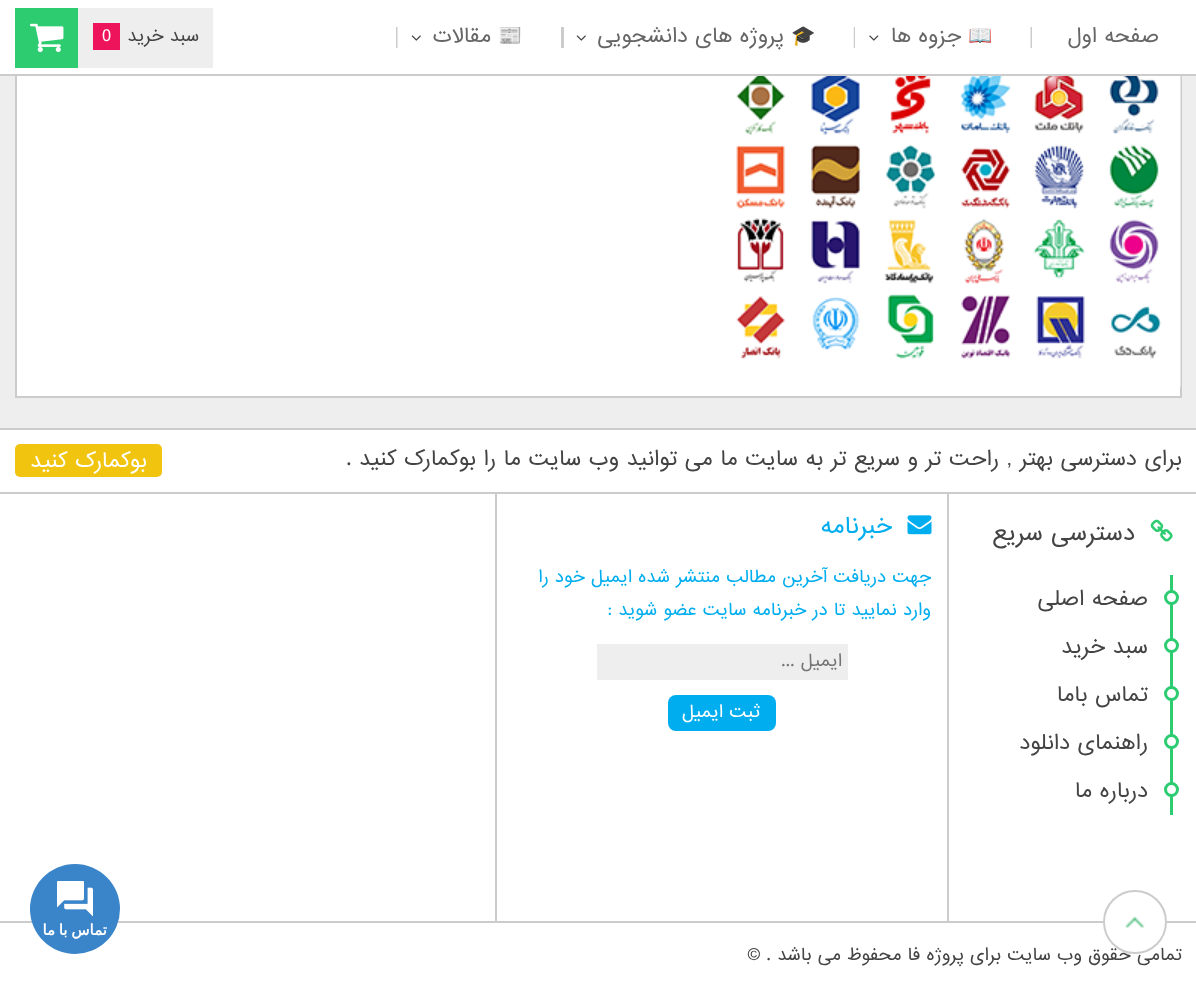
(async () => {
    const canvas = document.querySelector("canvas");
    canvas.width = 1196;
    canvas.height = 983;
    const context = canvas.getContext("2d");
    context.miterLimit = 4;
    context.fontKerning = "normal";
    function write(s, x, y, font, color) {
        context.font = font;
        context.fillStyle = color;
        context.fillText(s, x, y);
    }
    function block(x, y, w, h, color) {
        context.fillStyle = color;
        context.fillRect(x, y, w, h);
    }
    function card(x, y, w, h, r, color) {
        context.fillStyle = color;
        context.beginPath();
        context.roundRect(x, y, w, h, r);
        context.fill();
    }
    async function photo(src, x, y, w, h) {
        const img = new Image();
        img.src = src;
        await img.decode();
        context.drawImage(img, x, y, w, h);
    }

    block(0, 0, 1196, 983, "rgb(238, 238, 238)");
    block(17, 76, 1163, 320, "rgb(255, 255, 255)");
    context.strokeStyle = "rgb(204, 204, 204)";
    context.lineWidth = 2;
    context.strokeRect(16, -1, 1165, 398);
    await photo("media/1.png", 736, 76, 445, 311);
    block(0, 0, 1196, 74, "rgb(255, 255, 255)");
    block(0, 74, 1196, 2, "rgb(204, 204, 204)");
    await photo("media/2.png", 1030, 27, 2, 21);
    context.direction = "rtl";
    write("صفحه اول", 1159, 42, "19.5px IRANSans", "rgb(102, 102, 102)");
    await photo("media/3.png", 853, 27, 2, 21);
    write("📖", 993, 42, "19.5px Noto Color Emoji", "rgb(102, 102, 102)");
    write("جزوه ها", 961, 42, "19.5px IRANSans", "rgb(102, 102, 102)");
    await photo("media/4.png", 869, 35, 10, 6);
    block(561, 27, 3, 21, "rgb(204, 204, 204)");
    write("🎓", 816, 42, "19.5px Noto Color Emoji", "rgb(102, 102, 102)");
    write("پروژه های دانشجویی", 784, 42, "19.5px IRANSans", "rgb(102, 102, 102)");
    await photo("media/5.png", 576, 35, 10, 6);
    await photo("media/6.png", 396, 27, 2, 21);
    write("📰", 523, 42, "19.5px Noto Color Emoji", "rgb(102, 102, 102)");
    write("مقالات", 491, 42, "19.5px IRANSans", "rgb(102, 102, 102)");
    await photo("media/5.png", 411, 35, 10, 6);
    block(78, 8, 135, 60, "rgb(238, 238, 238)");
    write("سبد خرید", 199, 41, "16.5px IRANSans", "rgb(68, 68, 68)");
    block(93, 23, 27, 27, "rgb(237, 20, 91)");
    context.direction = "ltr";
    write("0", 102, 41, "16.5px IRANSans", "rgb(255, 255, 255)");
    block(15, 8, 63, 60, "rgb(46, 204, 113)");
    await photo("media/7.png", 30, 23, 34, 30);
    block(0, 430, 1196, 553, "rgb(255, 255, 255)");
    block(0, 428, 1196, 2, "rgb(204, 204, 204)");
    block(0, 492, 1196, 2, "rgb(204, 204, 204)");
    context.direction = "rtl";
    write("برای دسترسی بهتر , راحت تر و سریع تر به سایت ما می توانید وب سایت ما را بوکمارک کنید .", 1182, 465, "20px IRANSans", "rgb(68, 68, 68)");
    card(15, 444, 147, 33, 5, "rgb(241, 196, 15)");
    write("بوکمارک کنید", 147, 467, "20px IRANSans", "rgb(255, 255, 255)");
    await photo("media/8.png", 1150, 519, 23, 23);
    write("دسترسی سریع", 1135, 540, "22px IRANSans", "rgb(68, 68, 68)");
    block(1170, 575, 3, 240, "rgb(46, 204, 113)");
    context.fillStyle = "rgb(255, 255, 255)";
    context.beginPath();
    context.arc(1171.5, 597.5, 6, 0, Math.PI * 2);
    context.fill();
    context.strokeStyle = "rgb(46, 204, 113)";
    context.lineWidth = 3;
    context.stroke();
    write("صفحه اصلی", 1148, 605, "20px IRANSans", "rgb(68, 68, 68)");
    context.fillStyle = "rgb(255, 255, 255)";
    context.beginPath();
    context.arc(1171.5, 645.5, 6, 0, Math.PI * 2);
    context.fill();
    context.stroke();
    write("سبد خرید", 1148, 653, "20px IRANSans", "rgb(68, 68, 68)");
    context.fillStyle = "rgb(255, 255, 255)";
    context.beginPath();
    context.arc(1171.5, 693.5, 6, 0, Math.PI * 2);
    context.fill();
    context.stroke();
    write("تماس باما", 1148, 701, "20px IRANSans", "rgb(68, 68, 68)");
    context.fillStyle = "rgb(255, 255, 255)";
    context.beginPath();
    context.arc(1171.5, 741.5, 6, 0, Math.PI * 2);
    context.fill();
    context.stroke();
    write("راهنمای دانلود", 1148, 749, "20px IRANSans", "rgb(68, 68, 68)");
    context.fillStyle = "rgb(255, 255, 255)";
    context.beginPath();
    context.arc(1171.5, 789.5, 6, 0, Math.PI * 2);
    context.fill();
    context.stroke();
    write("درباره ما", 1148, 797, "20px IRANSans", "rgb(68, 68, 68)");
    block(947, 494, 2, 427, "rgb(204, 204, 204)");
    block(495, 494, 2, 427, "rgb(204, 204, 204)");
    await photo("media/9.png", 907, 515, 25, 20);
    write("خبرنامه", 892, 533, "22px IRANSans", "rgb(0, 174, 239)");
    write("جهت دریافت آخرین مطالب منتشر شده ایمیل خود را", 931, 582, "16.5px IRANSans", "rgb(0, 174, 239)");
    write("وارد نمایید تا در خبرنامه سایت عضو شوید :", 931, 615, "16.5px IRANSans", "rgb(0, 174, 239)");
    block(597, 644, 251, 36, "rgb(238, 238, 238)");
    write("ایمیل ...", 842, 666, "16.5px IRANSans", "rgb(117, 117, 117)");
    card(668, 695, 108, 36, 8, "rgb(0, 174, 239)");
    write("ثبت ایمیل", 760, 717, "16.5px IRANSans", "rgb(255, 255, 255)");
    block(0, 921, 1196, 2, "rgb(204, 204, 204)");
    write("تمامی حقوق وب سایت برای پروژه فا محفوظ می باشد . ©", 1182, 960, "16.5px IRANSans", "rgb(68, 68, 68)");
    context.fillStyle = "rgb(255, 255, 255)";
    context.beginPath();
    context.arc(1135, 922, 32, 0, Math.PI * 2);
    context.fill();
    await photo("media/10.png", 1125, 916, 20, 13);
    context.beginPath();
    context.arc(1135, 922, 31, 0, Math.PI * 2);
    context.strokeStyle = "rgb(204, 204, 204)";
    context.lineWidth = 2;
    context.stroke();
    context.fillStyle = "rgb(58, 132, 201)";
    context.beginPath();
    context.arc(75, 909, 45, 0, Math.PI * 2);
    context.fill();
    await photo("media/11.png", 57, 881, 36, 36);
    context.wordSpacing = "-1px";
    write("تماس با ما", 107, 935, "bold 15px DejaVu Sans", "rgb(255, 255, 255)");
})();
